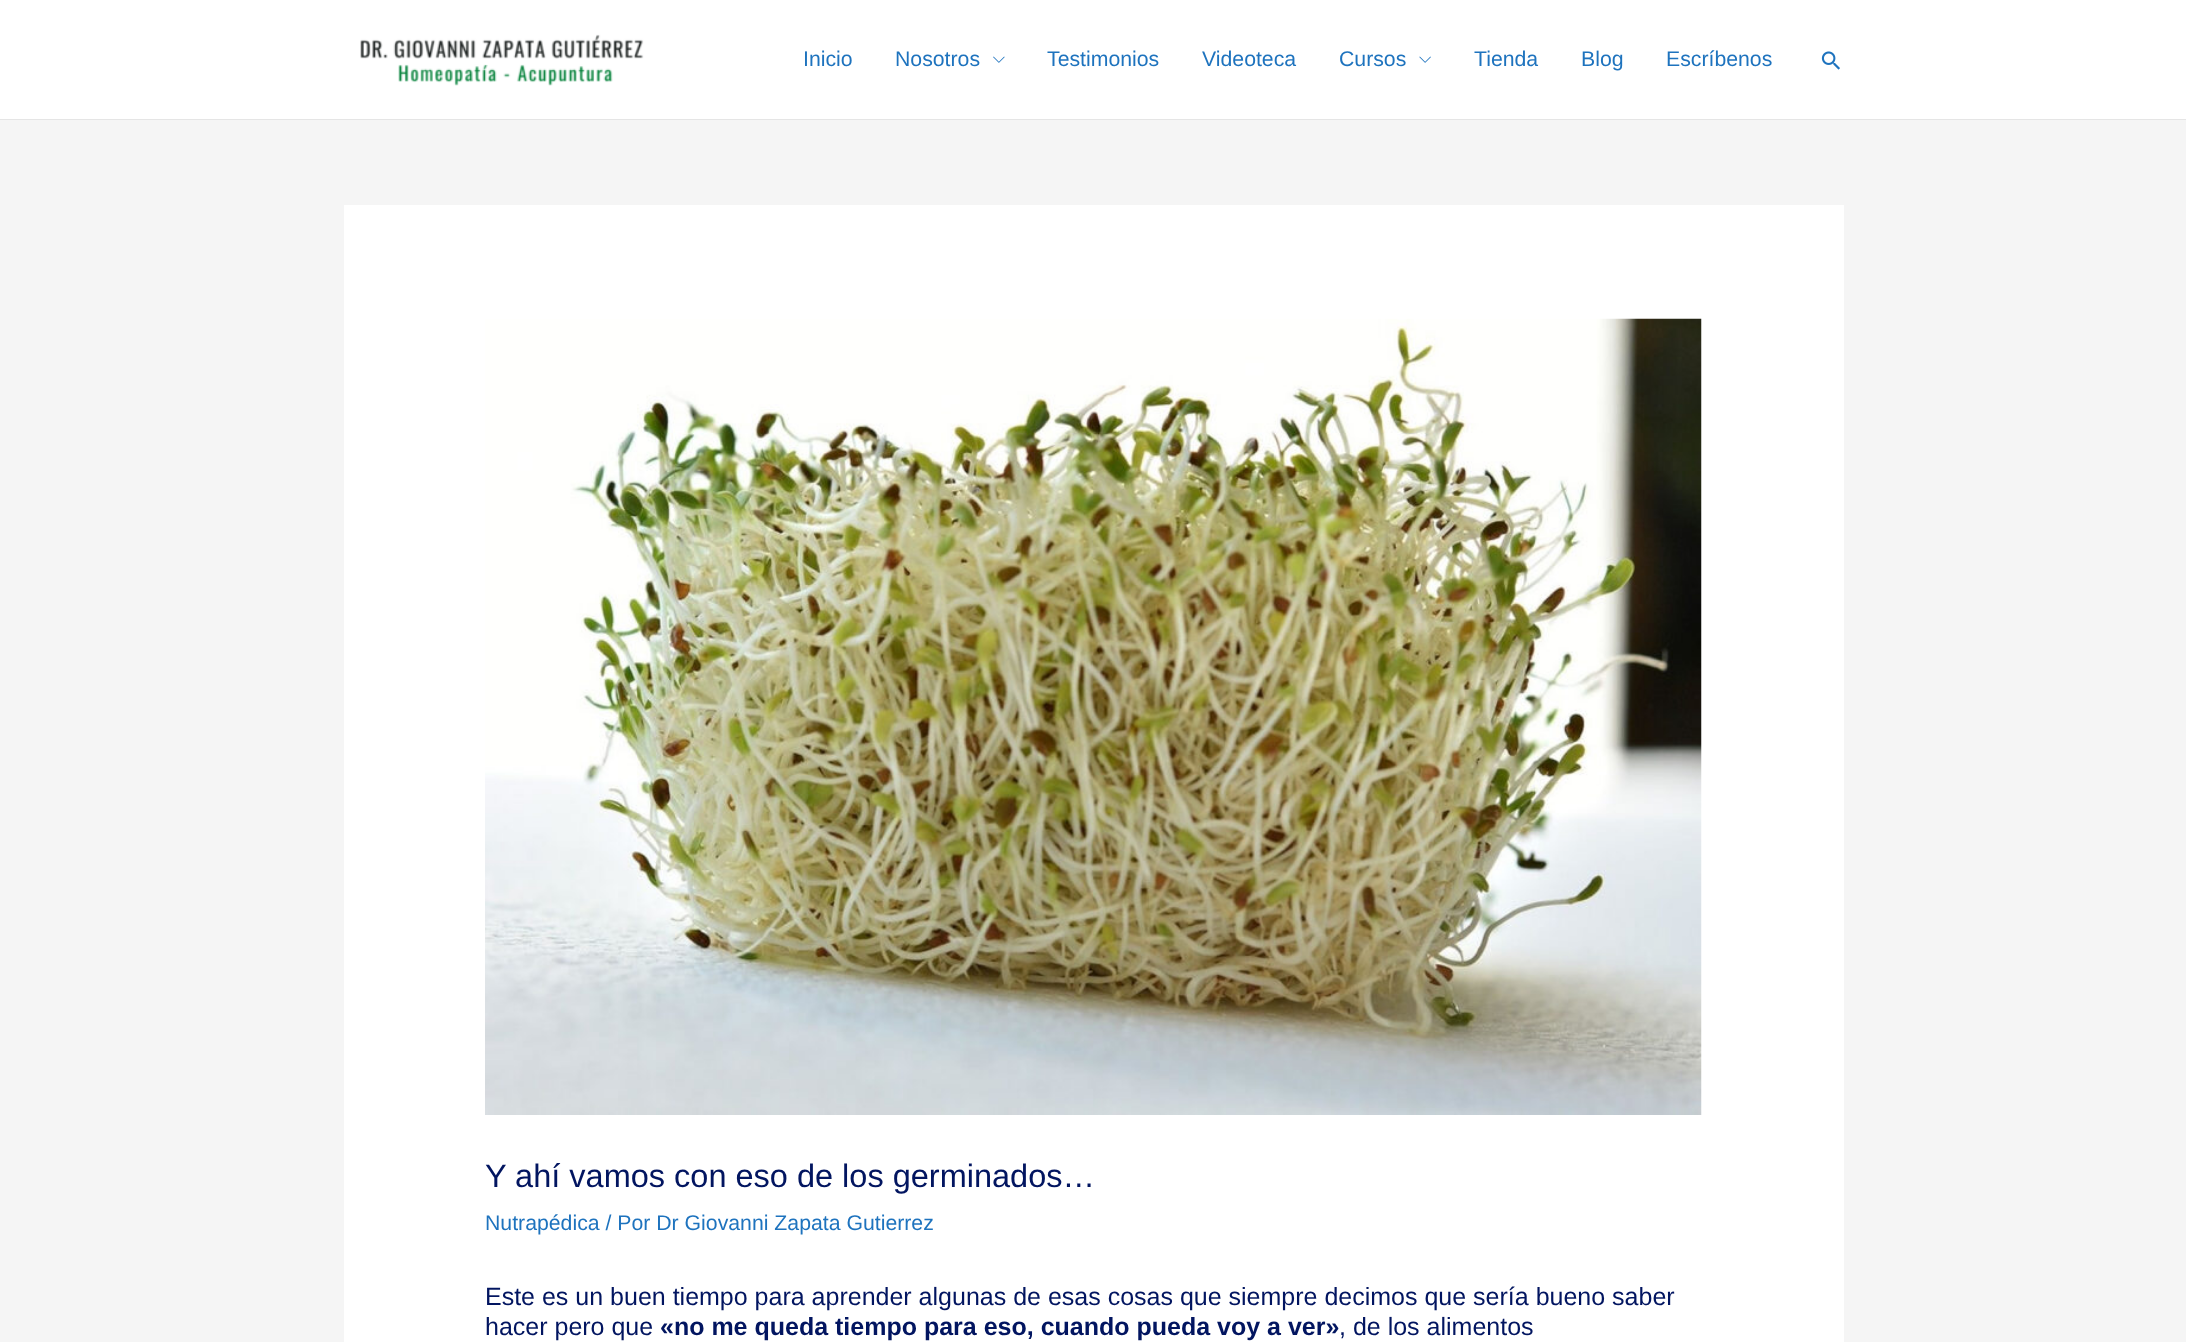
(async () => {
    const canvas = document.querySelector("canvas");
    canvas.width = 2186;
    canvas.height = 1342;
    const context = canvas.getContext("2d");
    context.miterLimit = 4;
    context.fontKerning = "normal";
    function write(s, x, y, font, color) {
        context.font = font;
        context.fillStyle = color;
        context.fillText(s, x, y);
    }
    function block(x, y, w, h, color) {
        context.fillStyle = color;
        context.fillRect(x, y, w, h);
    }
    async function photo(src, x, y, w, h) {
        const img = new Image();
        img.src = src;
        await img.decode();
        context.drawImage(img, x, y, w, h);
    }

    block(0, 0, 2186, 1342, "rgb(245, 245, 245)");
    block(0, 0, 2186, 119, "rgb(255, 255, 255)");
    block(0, 119, 2186, 1, "rgb(229, 229, 229)");
    await photo("media/1.png", 360, 34, 284, 52);
    write("Inicio", 803, 66, "21.25px Liberation Sans", "rgb(30, 115, 190)");
    write("Nosotros", 895, 66, "21.25px Liberation Sans", "rgb(30, 115, 190)");
    await photo("media/2.png", 993, 56, 12, 7);
    write("Testimonios", 1047, 66, "21.25px Liberation Sans", "rgb(30, 115, 190)");
    write("Videoteca", 1202, 66, "21.25px Liberation Sans", "rgb(30, 115, 190)");
    write("Cursos", 1339, 66, "21.25px Liberation Sans", "rgb(30, 115, 190)");
    await photo("media/3.png", 1419, 56, 12, 7);
    write("Tienda", 1474, 66, "21.25px Liberation Sans", "rgb(30, 115, 190)");
    write("Blog", 1581, 66, "21.25px Liberation Sans", "rgb(30, 115, 190)");
    write("Escríbenos", 1666, 66, "21.25px Liberation Sans", "rgb(30, 115, 190)");
    await photo("media/4.png", 1821, 51, 19, 19);
    block(344, 205, 1500, 1137, "rgb(255, 255, 255)");
    await photo("media/5.png", 485, 318, 1217, 797);
    write("Y ahí vamos con eso de los germinados…", 485, 1187, "32.5px Liberation Sans", "rgb(2, 21, 96)");
    write("Nutrapédica / Por Dr Giovanni Zapata Gutierrez", 485, 1230, "21.25px Liberation Sans", "rgb(30, 115, 190)");
    write("Este es un buen tiempo para aprender algunas de esas cosas que siempre decimos que sería bueno saber", 485, 1305, "25px Liberation Sans", "rgb(2, 21, 96)");
    write("hacer pero que", 485, 1335, "25px Liberation Sans", "rgb(2, 21, 96)");
    write("«no me queda tiempo para eso, cuando pueda voy a ver»", 660, 1335, "bold 25px Liberation Sans", "rgb(2, 21, 96)");
    write(", de los alimentos", 1339, 1335, "25px Liberation Sans", "rgb(2, 21, 96)");
})();
